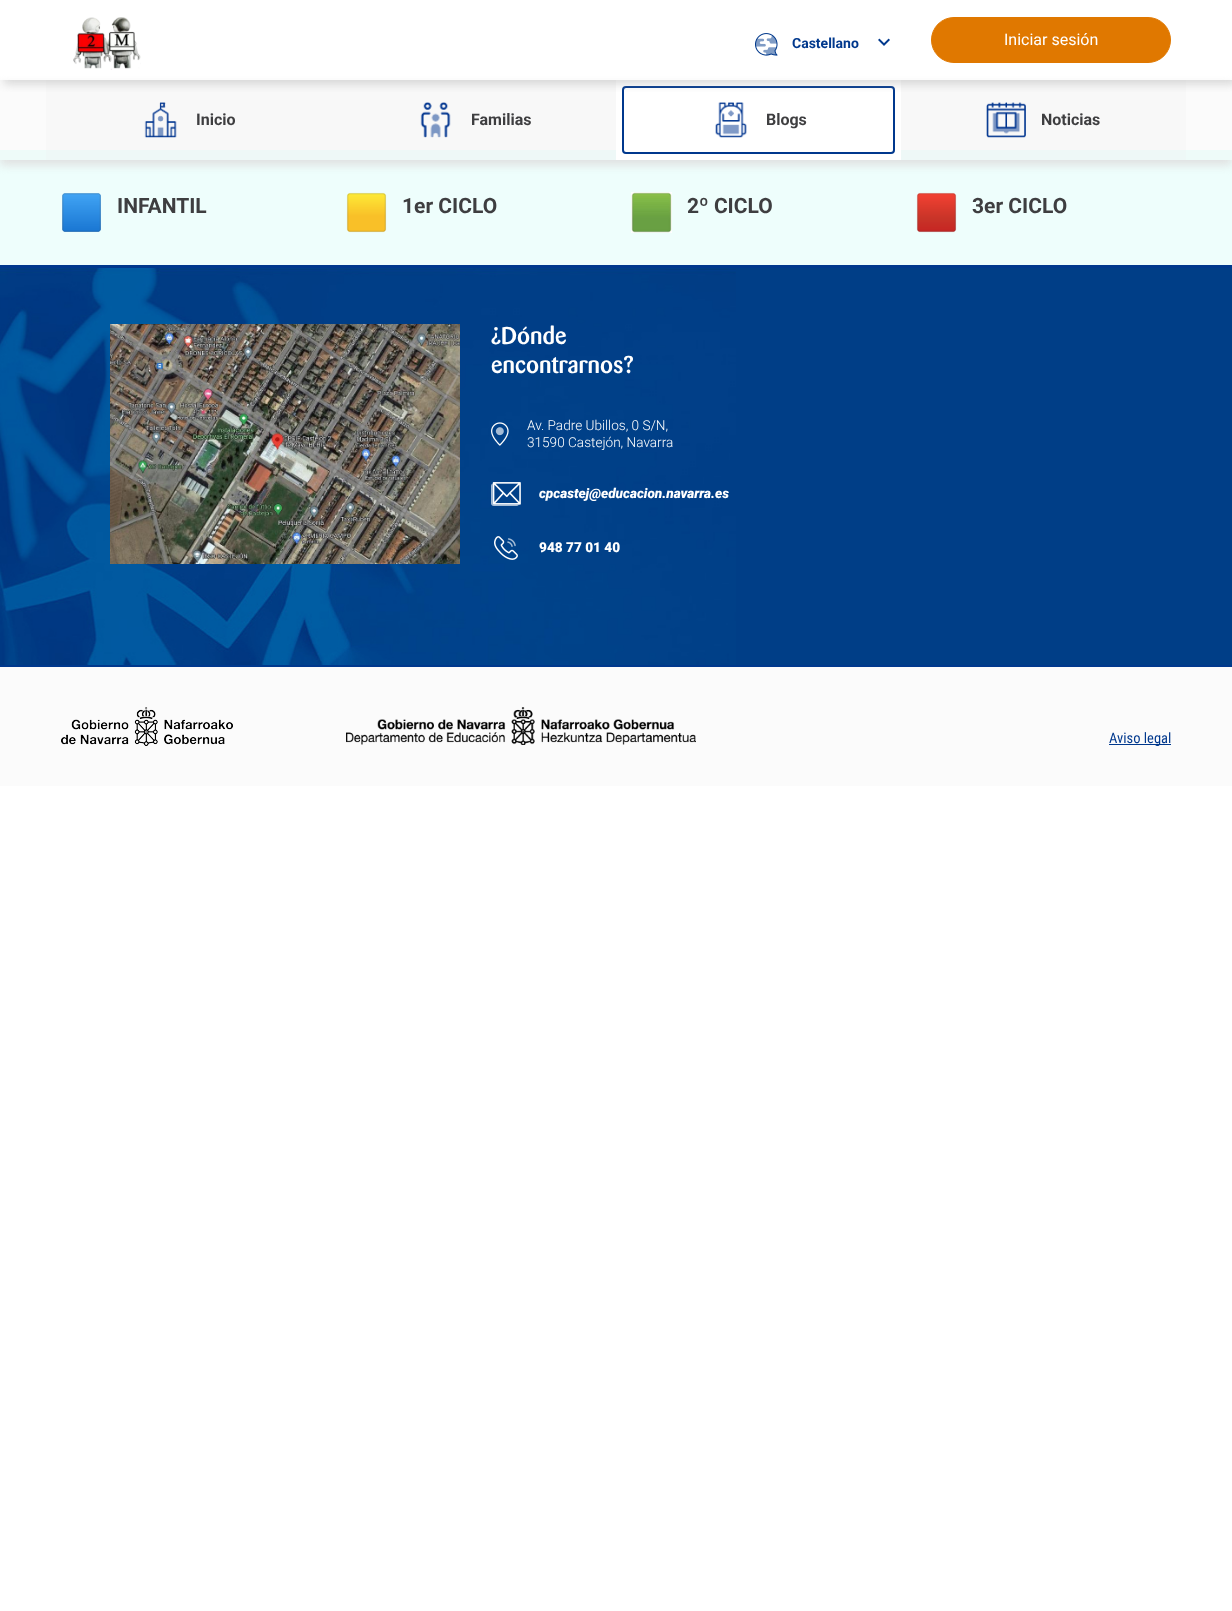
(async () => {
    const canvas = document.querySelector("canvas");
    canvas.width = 1232;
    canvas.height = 1611;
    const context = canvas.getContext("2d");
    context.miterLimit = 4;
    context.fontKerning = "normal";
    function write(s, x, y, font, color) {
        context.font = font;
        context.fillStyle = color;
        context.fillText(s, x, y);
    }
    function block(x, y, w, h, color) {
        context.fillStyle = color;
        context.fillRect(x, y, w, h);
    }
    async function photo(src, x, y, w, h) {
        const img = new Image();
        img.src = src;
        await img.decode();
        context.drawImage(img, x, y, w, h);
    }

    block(0, 0, 1232, 1611, "rgb(255, 255, 255)");
    block(0, 80, 1232, 70, "rgb(251, 251, 251)");
    block(46, 80, 1140, 70, "rgb(248, 248, 248)");
    block(0, 160, 1232, 105, "rgb(238, 254, 252)");
    block(0, 150, 1232, 10, "rgb(238, 251, 249)");
    block(46, 150, 1140, 10, "rgb(238, 248, 247)");
    context.save();
    context.beginPath();
    context.moveTo(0, 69);
    context.lineTo(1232, 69);
    context.lineTo(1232, 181);
    context.lineTo(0, 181);
    context.closePath();
    context.moveTo(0, 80);
    context.lineTo(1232, 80);
    context.lineTo(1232, 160);
    context.lineTo(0, 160);
    context.closePath();
    context.clip("evenodd");
    context.fillStyle = "rgb(224, 224, 224)";
    context.filter = "blur(5px)";
    context.beginPath();
    context.rect(0, 85, 1232, 80);
    context.fill();
    context.filter = "none";
    context.restore();
    block(616, 80, 285, 80, "rgb(255, 255, 255)");
    context.beginPath();
    context.roundRect(623, 87, 271, 66, 3);
    context.strokeStyle = "rgb(0, 56, 141)";
    context.lineWidth = 2;
    context.stroke();
    context.save();
    context.beginPath();
    context.rect(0, 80, 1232, 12);
    context.clip();
    context.fillStyle = "rgba(160, 160, 160, 0.4)";
    context.filter = "blur(5px)";
    context.beginPath();
    context.rect(4, 4, 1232, 80);
    context.fill();
    context.filter = "none";
    context.restore();
    await photo("media/1.png", 73, 17, 68, 53);
    await photo("media/2.png", 755, 33, 23, 23);
    write("Castellano", 792, 48, "bold 14px Roboto", "rgb(0, 56, 141)");
    await photo("media/3.png", 878, 38, 12, 8);
    context.fillStyle = "rgb(224, 120, 0)";
    context.beginPath();
    context.roundRect(931.5, 17.5, 239, 45, 22.5);
    context.fill();
    context.strokeStyle = "rgb(224, 120, 0)";
    context.lineWidth = 1;
    context.stroke();
    write("Iniciar sesión", 1004, 45, "16px Roboto", "rgb(255, 255, 255)");
    await photo("media/4.png", 144, 102, 33, 36);
    write("Inicio", 196, 125, "bold 16px Roboto", "rgb(62, 62, 64)");
    await photo("media/5.png", 420, 102, 31, 36);
    write("Familias", 471, 125, "bold 16px Roboto", "rgb(62, 62, 64)");
    await photo("media/6.png", 715, 102, 32, 36);
    write("Blogs", 766, 125, "bold 16px Roboto", "rgb(62, 62, 64)");
    await photo("media/7.png", 986, 102, 40, 36);
    write("Noticias", 1041, 125, "bold 16px Roboto", "rgb(62, 62, 64)");
    await photo("media/8.png", 62, 193, 39, 39);
    write("INFANTIL", 117, 213, "bold 21px Roboto", "rgb(62, 62, 64)");
    await photo("media/9.png", 346, 192, 41, 41);
    write("1er CICLO", 402, 213, "bold 21px Roboto", "rgb(62, 62, 64)");
    await photo("media/10.png", 631, 192, 41, 41);
    write("2º CICLO", 687, 213, "bold 21px Roboto", "rgb(62, 62, 64)");
    await photo("media/11.png", 916, 192, 41, 41);
    write("3er CICLO", 972, 213, "bold 21px Roboto", "rgb(62, 62, 64)");
    block(736, 268, 496, 397, "rgb(0, 62, 135)");
    block(0, 265, 1232, 3, "rgb(0, 56, 141)");
    await photo("media/12.png", 0, 268, 736, 397);
    await photo("media/13.png", 110, 324, 350, 240);
    write("¿Dónde", 491, 344, "500 24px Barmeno", "rgb(255, 255, 255)");
    write("encontrarnos?", 491, 373, "500 24px Barmeno", "rgb(255, 255, 255)");
    await photo("media/14.png", 491, 422, 18, 24);
    write("Av. Padre Ubillos, 0 S/N,", 527, 430, "300 13.6px Roboto", "rgb(255, 255, 255)");
    write("31590 Castejón, Navarra", 527, 447, "300 13.6px Roboto", "rgb(255, 255, 255)");
    await photo("media/15.png", 491, 482, 30, 24);
    write("cpcastej@educacion.navarra.es", 539, 498, "italic 900 13.6px Roboto", "rgb(255, 255, 255)");
    await photo("media/16.png", 494, 536, 24, 24);
    write("948 77 01 40", 539, 552, "900 13.6px Roboto", "rgb(255, 255, 255)");
    block(0, 667, 1232, 119, "rgb(251, 251, 251)");
    block(0, 665, 1232, 2, "rgb(0, 56, 141)");
    await photo("media/17.png", 61, 707, 172, 39);
    await photo("media/18.png", 346, 707, 350, 38);
    block(1109, 744, 62, 1, "rgb(0, 56, 141)");
    write("Aviso legal", 1109, 743, "14.5px Roboto Condensed", "rgb(0, 56, 141)");
})();
